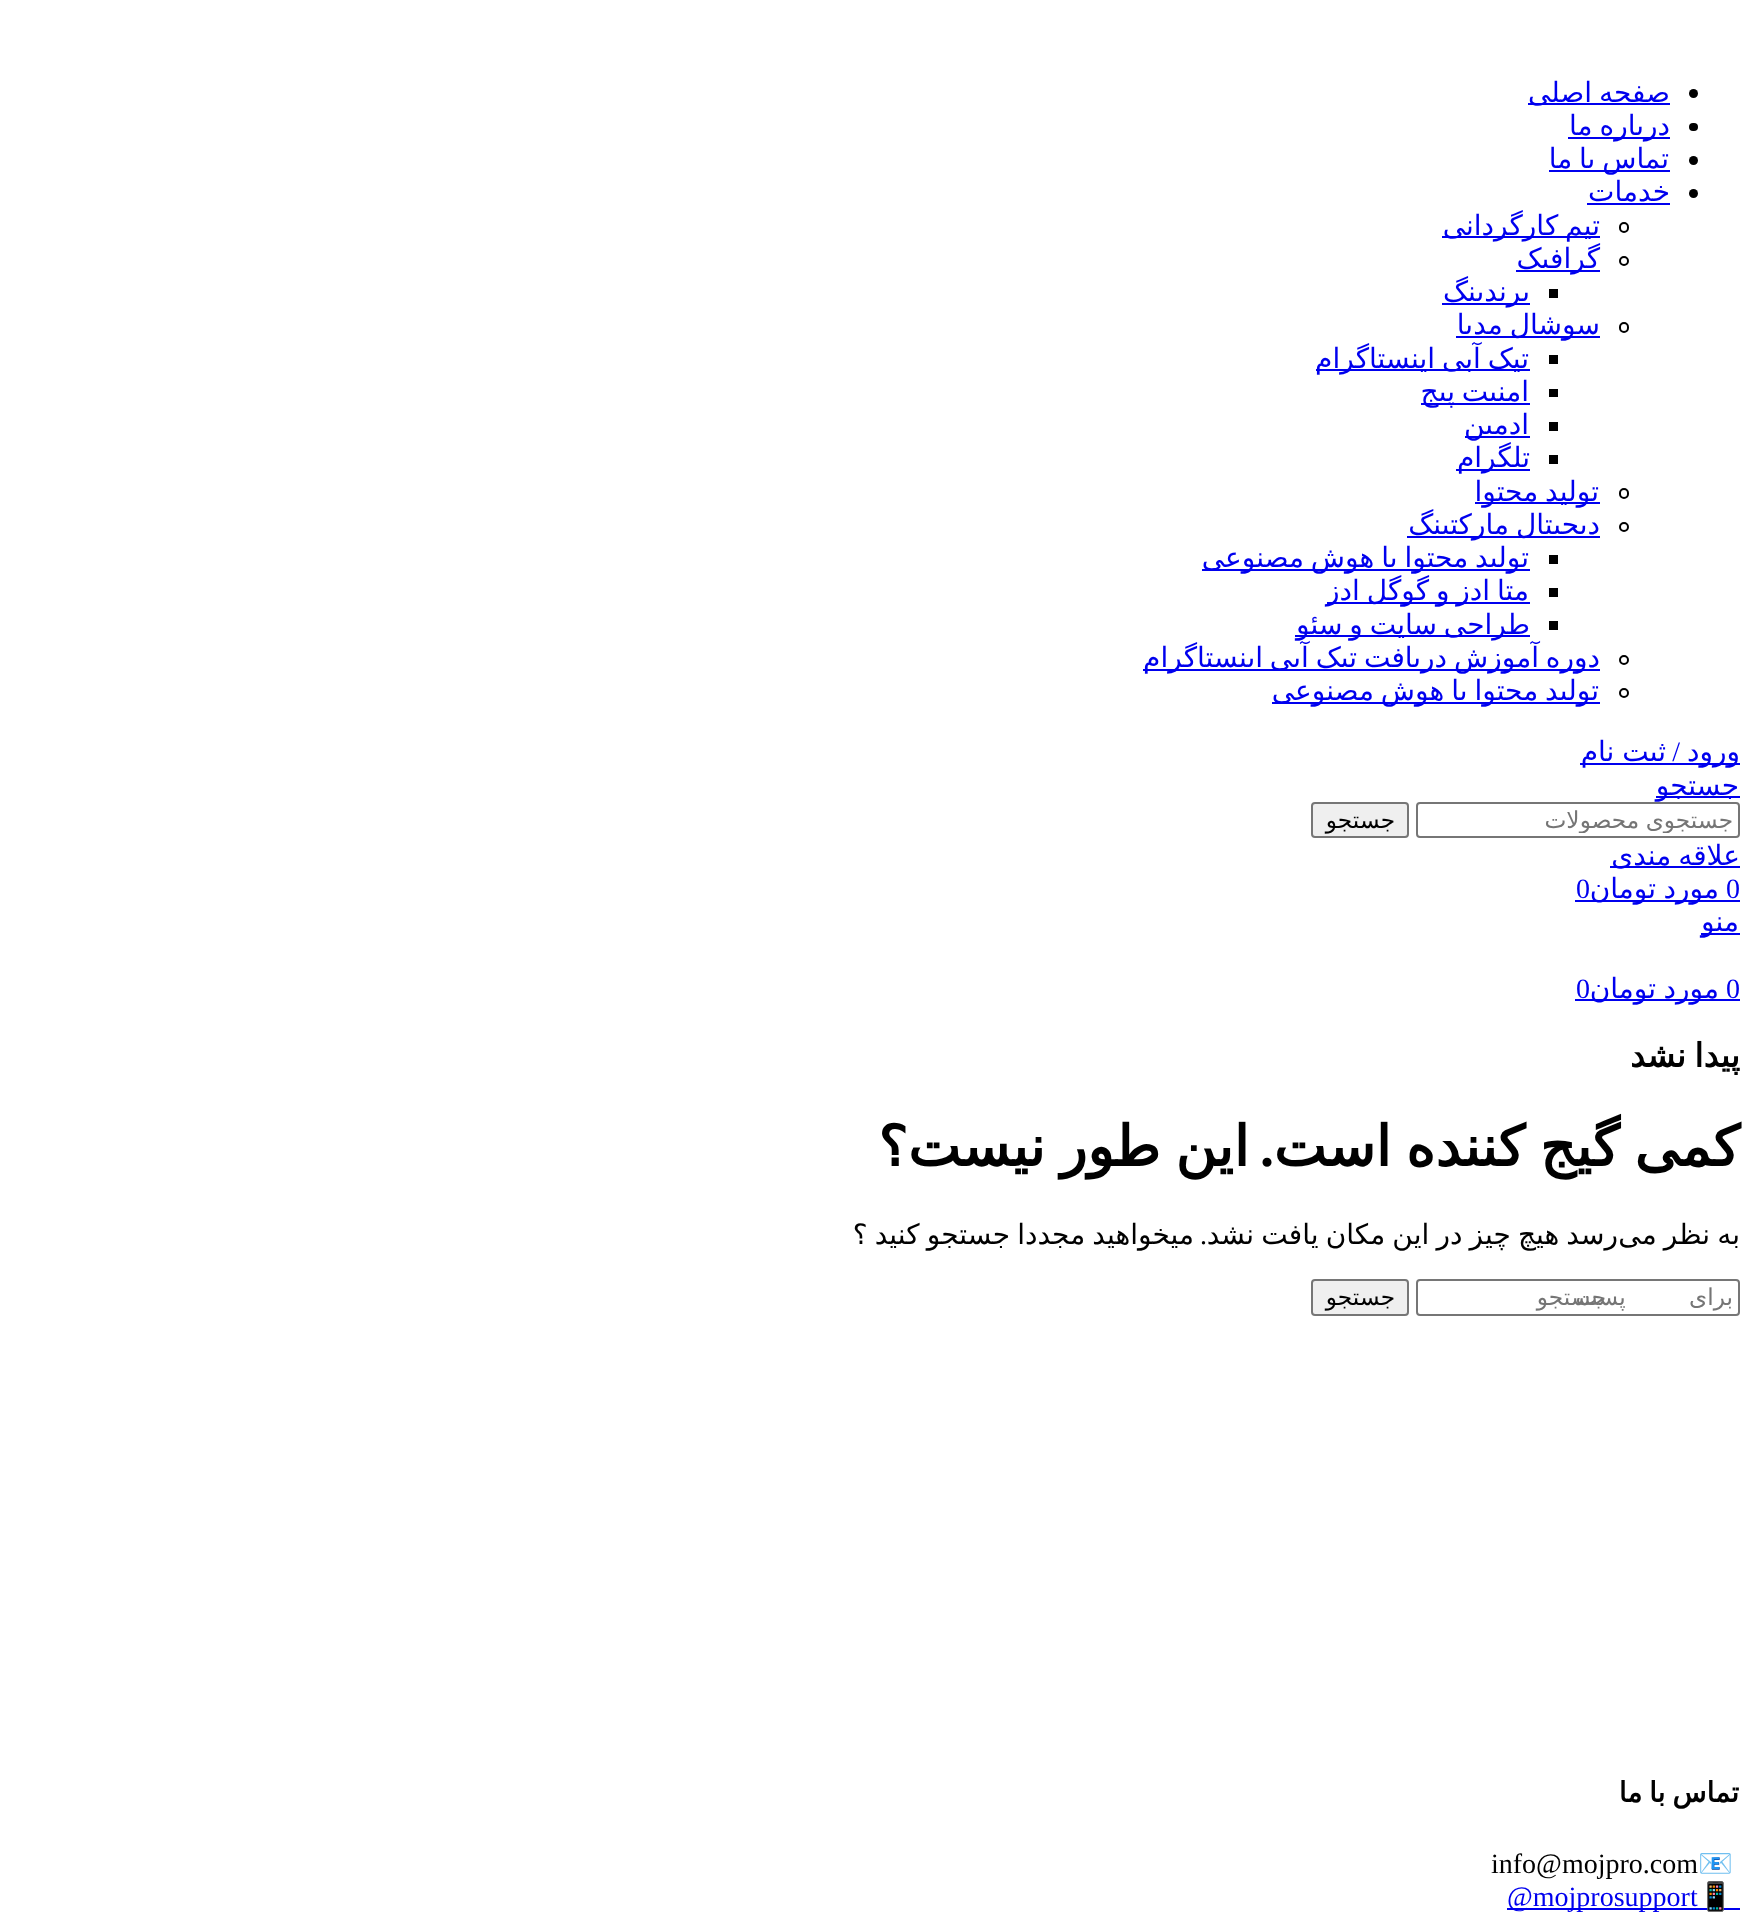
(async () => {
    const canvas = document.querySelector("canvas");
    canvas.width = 1753;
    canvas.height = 1923;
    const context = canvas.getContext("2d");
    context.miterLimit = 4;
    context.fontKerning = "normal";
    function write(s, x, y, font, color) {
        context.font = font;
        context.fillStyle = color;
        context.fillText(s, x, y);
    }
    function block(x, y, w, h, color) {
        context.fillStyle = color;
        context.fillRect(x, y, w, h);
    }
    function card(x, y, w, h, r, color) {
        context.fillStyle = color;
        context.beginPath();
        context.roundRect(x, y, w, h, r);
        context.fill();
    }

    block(0, 0, 1753, 1923, "rgb(255, 255, 255)");
    context.fillStyle = "rgb(0, 0, 0)";
    context.beginPath();
    context.arc(1693.5, 93.5, 4.5, 0, Math.PI * 2);
    context.fill();
    block(1528, 103, 142, 2, "rgb(0, 0, 238)");
    context.wordSpacing = "-2px";
    context.direction = "rtl";
    write("صفحه اصلی", 1670, 102, "28px DejaVu Sans", "rgb(0, 0, 238)");
    card(1689, 123, 9, 8, 4, "rgb(0, 0, 0)");
    block(1568, 137, 102, 2, "rgb(0, 0, 238)");
    write("درباره ما", 1670, 135, "28px DejaVu Sans", "rgb(0, 0, 238)");
    context.fillStyle = "rgb(0, 0, 0)";
    context.beginPath();
    context.arc(1693.5, 160.5, 4.5, 0, Math.PI * 2);
    context.fill();
    block(1549, 170, 121, 2, "rgb(0, 0, 238)");
    write("تماس با ما", 1669, 168, "28px DejaVu Sans", "rgb(0, 0, 238)");
    context.fillStyle = "rgb(0, 0, 0)";
    context.beginPath();
    context.arc(1693.5, 193.5, 4.5, 0, Math.PI * 2);
    context.fill();
    context.wordSpacing = "0px";
    write("خدمات", 1670, 201, "28px DejaVu Sans", "rgb(0, 0, 238)");
    block(1587, 203, 83, 2, "rgb(0, 0, 238)");
    context.beginPath();
    context.roundRect(1620, 223, 8, 9, 4);
    context.strokeStyle = "rgb(0, 0, 0)";
    context.lineWidth = 2;
    context.stroke();
    block(1442, 236, 158, 2, "rgb(0, 0, 238)");
    context.wordSpacing = "-2px";
    write("تیم کارگردانی", 1600, 235, "28px DejaVu Sans", "rgb(0, 0, 238)");
    context.beginPath();
    context.arc(1624, 261, 4, 0, Math.PI * 2);
    context.stroke();
    block(1516, 270, 84, 2, "rgb(0, 0, 238)");
    context.wordSpacing = "0px";
    write("گرافیک", 1600, 268, "28px DejaVu Sans", "rgb(0, 0, 238)");
    block(1549, 289, 9, 9, "rgb(0, 0, 0)");
    block(1442, 303, 88, 2, "rgb(0, 0, 238)");
    write("برندینگ", 1530, 301, "28px DejaVu Sans", "rgb(0, 0, 238)");
    context.beginPath();
    context.roundRect(1620, 323, 8, 9, 4);
    context.stroke();
    block(1456, 336, 144, 2, "rgb(0, 0, 238)");
    context.wordSpacing = "-2px";
    write("سوشال مدیا", 1600, 334, "28px DejaVu Sans", "rgb(0, 0, 238)");
    block(1549, 355, 9, 9, "rgb(0, 0, 0)");
    block(1316, 369, 214, 2, "rgb(0, 0, 238)");
    write("تیک آبی اینستاگرام", 1529, 368, "28px DejaVu Sans", "rgb(0, 0, 238)");
    block(1549, 389, 9, 8, "rgb(0, 0, 0)");
    block(1421, 403, 109, 2, "rgb(0, 0, 238)");
    write("امنیت پیج", 1529, 401, "28px DejaVu Sans", "rgb(0, 0, 238)");
    block(1549, 422, 9, 9, "rgb(0, 0, 0)");
    block(1465, 436, 65, 2, "rgb(0, 0, 238)");
    context.wordSpacing = "0px";
    write("ادمین", 1529, 434, "28px DejaVu Sans", "rgb(0, 0, 238)");
    block(1549, 455, 9, 9, "rgb(0, 0, 0)");
    block(1456, 469, 74, 2, "rgb(0, 0, 238)");
    write("تلگرام", 1530, 467, "28px DejaVu Sans", "rgb(0, 0, 238)");
    context.beginPath();
    context.roundRect(1620, 489, 8, 9, 4);
    context.stroke();
    block(1475, 502, 125, 2, "rgb(0, 0, 238)");
    context.wordSpacing = "-2px";
    write("تولید محتوا", 1599, 501, "28px DejaVu Sans", "rgb(0, 0, 238)");
    context.beginPath();
    context.arc(1624, 527, 4, 0, Math.PI * 2);
    context.stroke();
    block(1407, 536, 193, 2, "rgb(0, 0, 238)");
    write("دیجیتال مارکتینگ", 1600, 534, "28px DejaVu Sans", "rgb(0, 0, 238)");
    block(1549, 555, 9, 9, "rgb(0, 0, 0)");
    block(1202, 569, 328, 2, "rgb(0, 0, 238)");
    write("تولید محتوا با هوش مصنوعی", 1529, 567, "28px DejaVu Sans", "rgb(0, 0, 238)");
    block(1549, 588, 9, 9, "rgb(0, 0, 0)");
    block(1327, 602, 203, 2, "rgb(0, 0, 238)");
    write("متا ادز و گوگل ادز", 1529, 600, "28px DejaVu Sans", "rgb(0, 0, 238)");
    block(1549, 621, 9, 9, "rgb(0, 0, 0)");
    block(1295, 635, 235, 2, "rgb(0, 0, 238)");
    write("طراحی سایت و سئو", 1530, 634, "28px DejaVu Sans", "rgb(0, 0, 238)");
    context.beginPath();
    context.arc(1624, 660, 4, 0, Math.PI * 2);
    context.stroke();
    block(1143, 669, 457, 2, "rgb(0, 0, 238)");
    write("دوره آموزش دریافت تیک آبی اینستاگرام", 1600, 667, "28px DejaVu Sans", "rgb(0, 0, 238)");
    context.beginPath();
    context.arc(1624, 693, 4, 0, Math.PI * 2);
    context.stroke();
    block(1272, 702, 328, 2, "rgb(0, 0, 238)");
    write("تولید محتوا با هوش مصنوعی", 1599, 700, "28px DejaVu Sans", "rgb(0, 0, 238)");
    block(1580, 763, 160, 2, "rgb(0, 0, 238)");
    context.wordSpacing = "0px";
    write("ورود", 1740, 761, "28px DejaVu Sans", "rgb(0, 0, 238)");
    write("/", 1680, 761, "28px Liberation Serif", "rgb(0, 0, 238)");
    context.wordSpacing = "-1px";
    write("ثبت نام", 1666, 761, "28px DejaVu Sans", "rgb(0, 0, 238)");
    block(1656, 796, 84, 2, "rgb(0, 0, 238)");
    context.wordSpacing = "0px";
    write("جستجو", 1739, 795, "28px DejaVu Sans", "rgb(0, 0, 238)");
    context.beginPath();
    context.roundRect(1417, 803, 322, 34, 3);
    context.strokeStyle = "rgb(118, 118, 118)";
    context.stroke();
    context.save();
    context.beginPath();
    context.rect(1423, 807, 310, 26);
    context.clip();
    context.wordSpacing = "-1px";
    write("جستجوی محصولات", 1733, 828, "23.25px DejaVu Sans", "rgb(117, 117, 117)");
    context.restore();
    context.fillStyle = "rgb(239, 239, 239)";
    context.beginPath();
    context.roundRect(1312, 803, 96, 34, 3);
    context.fill();
    context.stroke();
    write("جستجو", 1395, 828, "23.25px DejaVu Sans", "rgb(0, 0, 0)");
    block(1610, 866, 130, 2, "rgb(0, 0, 238)");
    context.wordSpacing = "-2px";
    write("علاقه مندی", 1740, 865, "28px DejaVu Sans", "rgb(0, 0, 238)");
    context.wordSpacing = "0px";
    context.direction = "ltr";
    write("0", 1726, 898, "28px Liberation Serif", "rgb(0, 0, 238)");
    block(1575, 900, 165, 2, "rgb(0, 0, 238)");
    context.direction = "rtl";
    write("مورد", 1719, 898, "28px DejaVu Sans", "rgb(0, 0, 238)");
    write("تومان", 1656, 898, "28px DejaVu Sans", "rgb(0, 0, 238)");
    context.direction = "ltr";
    write("0", 1576, 898, "28px Liberation Serif", "rgb(0, 0, 238)");
    block(1701, 933, 39, 2, "rgb(0, 0, 238)");
    context.direction = "rtl";
    write("منو", 1739, 931, "28px DejaVu Sans", "rgb(0, 0, 238)");
    context.direction = "ltr";
    write("0", 1726, 998, "28px Liberation Serif", "rgb(0, 0, 238)");
    block(1575, 999, 165, 2, "rgb(0, 0, 238)");
    context.direction = "rtl";
    write("مورد", 1719, 998, "28px DejaVu Sans", "rgb(0, 0, 238)");
    write("تومان", 1656, 998, "28px DejaVu Sans", "rgb(0, 0, 238)");
    context.direction = "ltr";
    write("0", 1576, 998, "28px Liberation Serif", "rgb(0, 0, 238)");
    context.wordSpacing = "-2px";
    context.direction = "rtl";
    write("پیدا نشد", 1740, 1067, "bold 33px DejaVu Sans", "rgb(0, 0, 0)");
    context.wordSpacing = "-3px";
    write("کمی گیج کننده است", 1740, 1166, "bold 56px DejaVu Sans", "rgb(0, 0, 0)");
    context.wordSpacing = "0px";
    write(".", 1274, 1166, "bold 56px Liberation Serif", "rgb(0, 0, 0)");
    context.wordSpacing = "-3px";
    write("این طور نیست؟", 1249, 1166, "bold 56px DejaVu Sans", "rgb(0, 0, 0)");
    context.wordSpacing = "-1.75px";
    write("به نظر می", 1740, 1244, "28px DejaVu Sans", "rgb(0, 0, 0)");
    write("رسد هیچ چیز در این مکان یافت نشد", 1618, 1244, "28px DejaVu Sans", "rgb(0, 0, 0)");
    context.wordSpacing = "0px";
    write(".", 1207, 1244, "28px Liberation Serif", "rgb(0, 0, 0)");
    context.wordSpacing = "-1.75px";
    write("میخواهید مجددا جستجو کنید ؟", 1194, 1244, "28px DejaVu Sans", "rgb(0, 0, 0)");
    context.beginPath();
    context.roundRect(1417, 1280, 322, 35, 3);
    context.stroke();
    context.wordSpacing = "0px";
    write("جستجو", 1606, 1305, "23.25px DejaVu Sans", "rgb(117, 117, 117)");
    context.wordSpacing = "56px";
    write("برای پست", 1733, 1305, "23.25px DejaVu Sans", "rgb(117, 117, 117)");
    context.fillStyle = "rgb(239, 239, 239)";
    context.beginPath();
    context.roundRect(1312, 1280, 96, 35, 3);
    context.fill();
    context.stroke();
    context.wordSpacing = "0px";
    write("جستجو", 1395, 1305, "23.25px DejaVu Sans", "rgb(0, 0, 0)");
    context.wordSpacing = "-2px";
    write("تماس با ما", 1739, 1802, "bold 28px DejaVu Sans", "rgb(0, 0, 0)");
    context.wordSpacing = "0px";
    context.direction = "ltr";
    write("info@mojpro.com", 1491, 1873, "28px Liberation Serif", "rgb(0, 0, 0)");
    write("📧", 1698, 1873, "28px Noto Color Emoji", "rgb(0, 0, 0)");
    block(1507, 1908, 233, 2, "rgb(0, 0, 238)");
    write("@mojprosupport", 1507, 1906, "28px Liberation Serif", "rgb(0, 0, 238)");
    write("📱", 1698, 1906, "28px Noto Color Emoji", "rgb(0, 0, 238)");
})();
